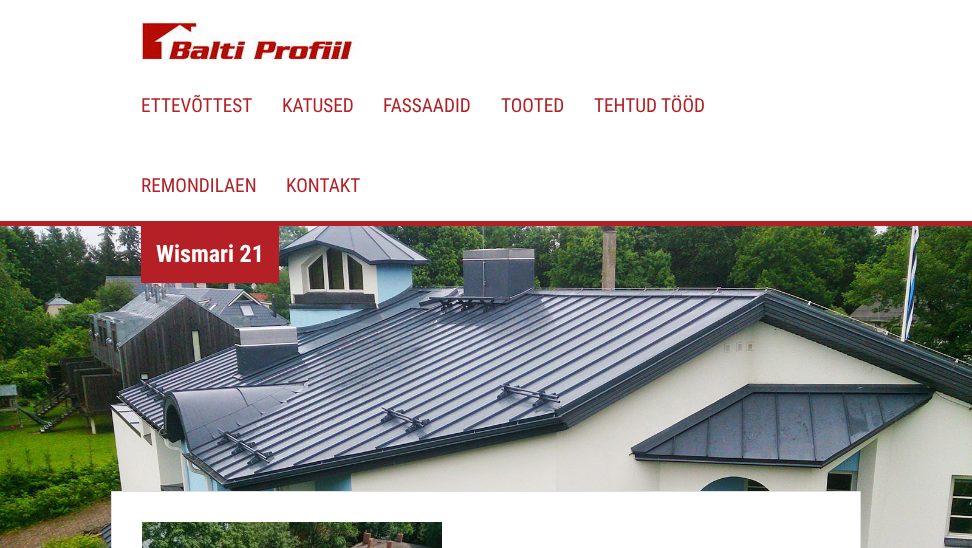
(async () => {
    const canvas = document.querySelector("canvas");
    canvas.width = 972;
    canvas.height = 548;
    const context = canvas.getContext("2d");
    context.miterLimit = 4;
    context.fontKerning = "normal";
    function write(s, x, y, font, color) {
        context.font = font;
        context.fillStyle = color;
        context.fillText(s, x, y);
    }
    function block(x, y, w, h, color) {
        context.fillStyle = color;
        context.fillRect(x, y, w, h);
    }
    async function photo(src, x, y, w, h) {
        const img = new Image();
        img.src = src;
        await img.decode();
        context.drawImage(img, x, y, w, h);
    }

    block(0, 0, 972, 548, "rgb(255, 255, 255)");
    await photo("media/1.png", 141, 19, 221, 42);
    write("ETTEVÕTTEST", 141, 112, "19.25px Roboto Condensed", "rgb(180, 32, 37)");
    write("KATUSED", 282, 112, "19.25px Roboto Condensed", "rgb(180, 32, 37)");
    write("FASSAADID", 383, 112, "19.25px Roboto Condensed", "rgb(180, 32, 37)");
    write("TOOTED", 501, 112, "19.25px Roboto Condensed", "rgb(180, 32, 37)");
    write("TEHTUD TÖÖD", 594, 112, "19.25px Roboto Condensed", "rgb(180, 32, 37)");
    write("REMONDILAEN", 141, 192, "19.25px Roboto Condensed", "rgb(180, 32, 37)");
    write("KONTAKT", 286, 192, "19.25px Roboto Condensed", "rgb(180, 32, 37)");
    await photo("media/2.png", 0, 226, 972, 322);
    block(0, 221, 972, 5, "rgb(180, 32, 37)");
    block(141, 226, 138, 57, "rgb(180, 32, 37)");
    write("Wismari 21", 156, 262, "bold 24px Roboto Condensed", "rgb(255, 255, 255)");
    context.beginPath();
    context.rect(111.5, 491.5, 749, 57);
    context.fill();
    context.strokeStyle = "rgb(222, 222, 222)";
    context.stroke();
    await photo("media/3.png", 142, 522, 300, 26);
})();
